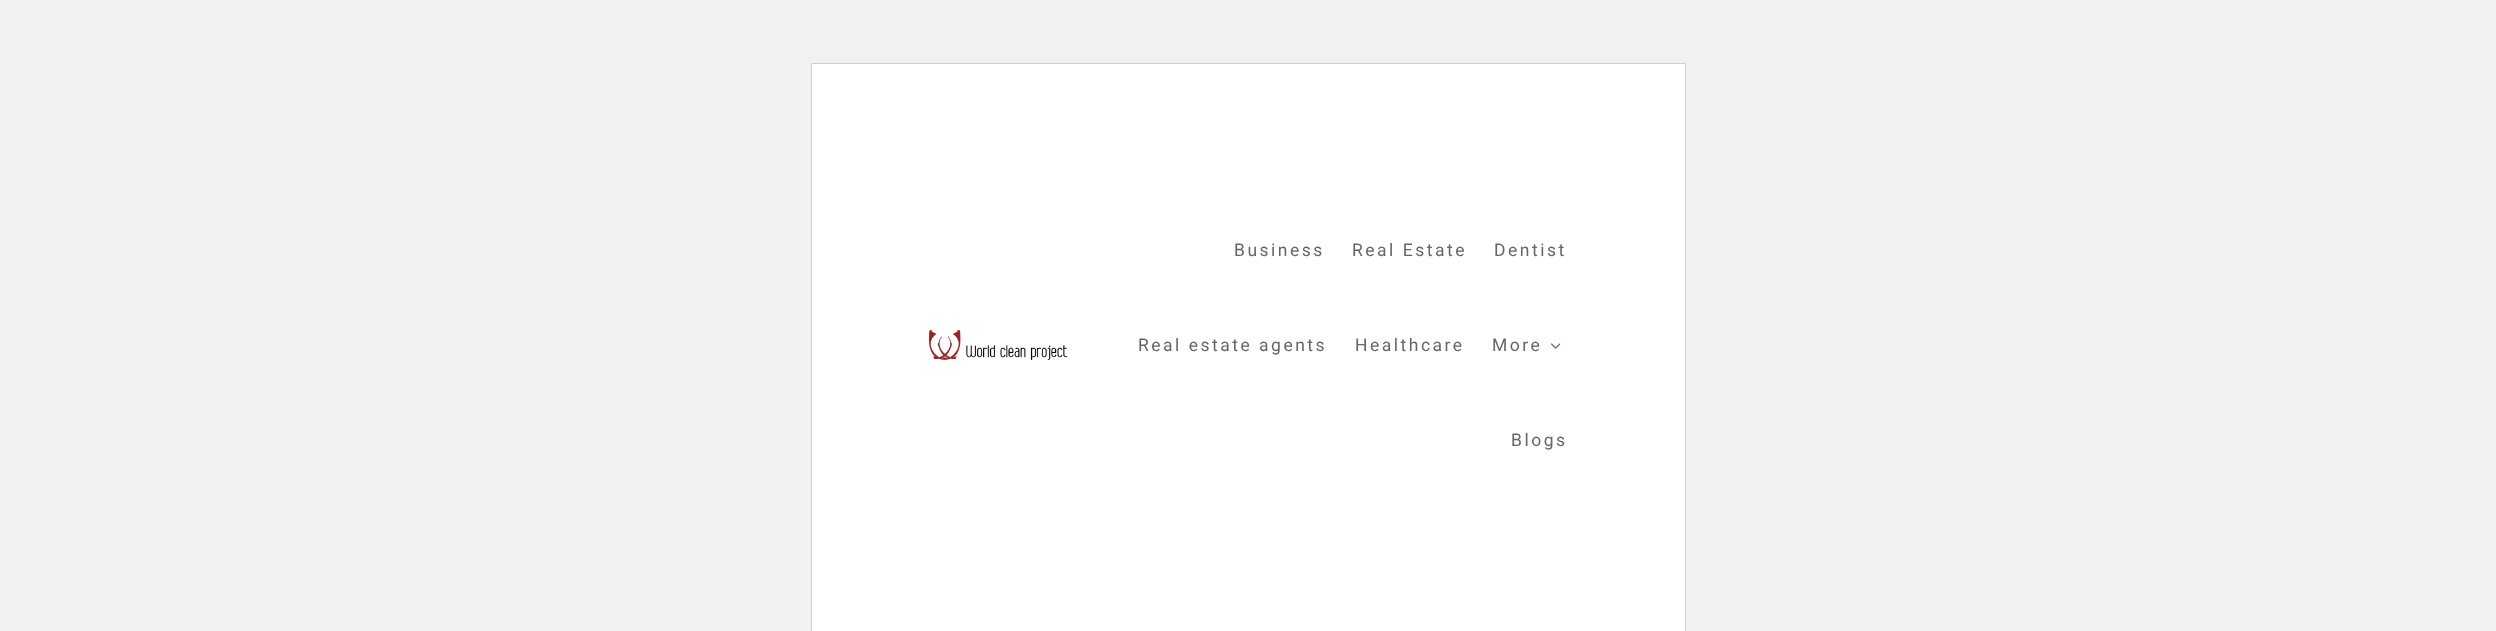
(async () => {
    const canvas = document.querySelector("canvas");
    canvas.width = 2496;
    canvas.height = 631;
    const context = canvas.getContext("2d");
    context.miterLimit = 4;
    context.fontKerning = "normal";
    function write(s, x, y, font, color) {
        context.font = font;
        context.fillStyle = color;
        context.fillText(s, x, y);
    }
    function block(x, y, w, h, color) {
        context.fillStyle = color;
        context.fillRect(x, y, w, h);
    }
    async function photo(src, x, y, w, h) {
        const img = new Image();
        img.src = src;
        await img.decode();
        context.drawImage(img, x, y, w, h);
    }

    block(0, 0, 2496, 631, "rgb(241, 241, 241)");
    context.fillStyle = "rgb(255, 255, 255)";
    context.beginPath();
    context.rect(811.5, 63.5, 874, 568);
    context.fill();
    context.strokeStyle = "rgb(204, 208, 212)";
    context.stroke();
    await photo("media/1.png", 928, 330, 140, 30);
    context.letterSpacing = "2.5px";
    write("Business", 1234, 256, "17.5px Roboto", "rgb(102, 102, 102)");
    write("Real Estate", 1352, 256, "17.5px Roboto", "rgb(102, 102, 102)");
    write("Dentist", 1494, 256, "17.5px Roboto", "rgb(102, 102, 102)");
    write("Real estate agents", 1138, 351, "17.5px Roboto", "rgb(102, 102, 102)");
    write("Healthcare", 1355, 351, "17.5px Roboto", "rgb(102, 102, 102)");
    write("More", 1492, 351, "17.5px Roboto", "rgb(102, 102, 102)");
    await photo("media/2.png", 1551, 343, 10, 6);
    write("Blogs", 1511, 446, "17.5px Roboto", "rgb(102, 102, 102)");
})();
